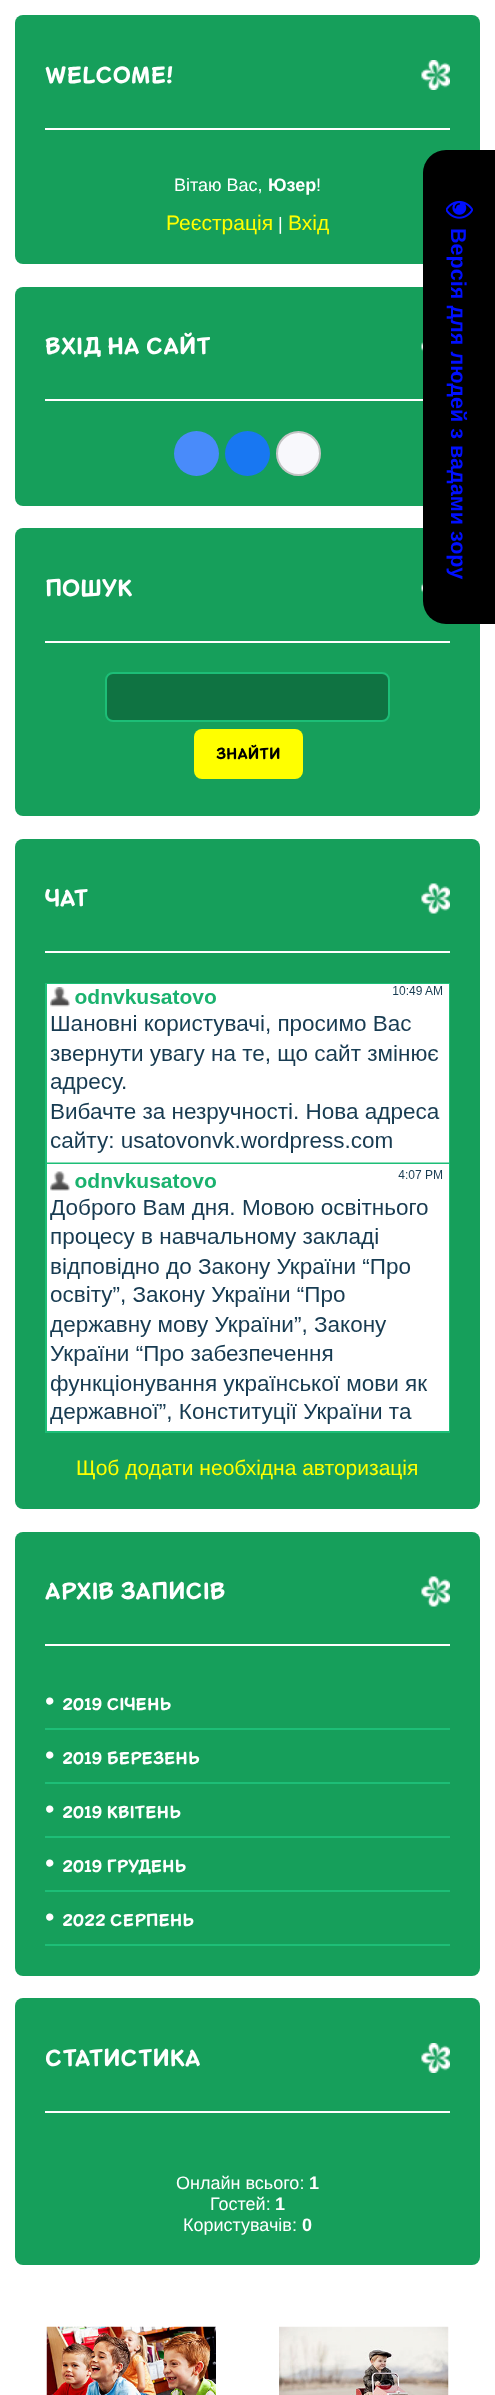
(async () => {
    const canvas = document.querySelector("canvas");
    canvas.width = 495;
    canvas.height = 2395;
    const context = canvas.getContext("2d");
    context.miterLimit = 4;
    context.fontKerning = "normal";
    function write(s, x, y, font, color) {
        context.font = font;
        context.fillStyle = color;
        context.fillText(s, x, y);
    }
    function block(x, y, w, h, color) {
        context.fillStyle = color;
        context.fillRect(x, y, w, h);
    }
    function card(x, y, w, h, r, color) {
        context.fillStyle = color;
        context.beginPath();
        context.roundRect(x, y, w, h, r);
        context.fill();
    }
    async function photo(src, x, y, w, h) {
        const img = new Image();
        img.src = src;
        await img.decode();
        context.drawImage(img, x, y, w, h);
    }

    block(0, 0, 495, 2395, "rgb(255, 255, 255)");
    card(15, 15, 465, 249, 8, "rgb(22, 159, 91)");
    block(45, 128, 405, 2, "rgb(255, 255, 255)");
    await photo("media/1.png", 421, 60, 29, 30);
    write("WELCOME!", 45, 83, "bold 22.5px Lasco", "rgb(255, 255, 255)");
    write("Вітаю Вас,", 174, 191, "18px Liberation Sans", "rgb(255, 255, 255)");
    write("Юзер", 268, 191, "bold 18px Liberation Sans", "rgb(255, 255, 255)");
    write("!", 316, 191, "18px Liberation Sans", "rgb(255, 255, 255)");
    write("Реєстрація", 166, 230, "21px Liberation Sans", "rgb(255, 255, 0)");
    write("|", 278, 230, "18px Liberation Sans", "rgb(255, 255, 255)");
    write("Вхід", 288, 230, "21px Liberation Sans", "rgb(255, 255, 0)");
    card(15, 287, 465, 219, 8, "rgb(22, 159, 91)");
    block(45, 399, 378, 2, "rgb(255, 255, 255)");
    await photo("media/2.png", 421, 342, 2, 10);
    write("ВХІД НА САЙТ", 45, 354, "bold 22.5px Lasco", "rgb(255, 255, 255)");
    context.fillStyle = "rgb(73, 139, 250)";
    context.beginPath();
    context.arc(196.5, 453.5, 22.5, 0, Math.PI * 2);
    context.fill();
    context.fillStyle = "rgb(24, 119, 242)";
    context.beginPath();
    context.arc(247.5, 453.5, 22.5, 0, Math.PI * 2);
    context.fill();
    context.fillStyle = "rgb(248, 248, 252)";
    context.beginPath();
    context.arc(298.5, 453.5, 21.5, 0, Math.PI * 2);
    context.fill();
    context.strokeStyle = "rgb(196, 196, 196)";
    context.lineWidth = 2;
    context.stroke();
    card(15, 528, 465, 288, 8, "rgb(22, 159, 91)");
    block(45, 641, 405, 2, "rgb(255, 255, 255)");
    await photo("media/3.png", 421, 583, 2, 10);
    write("ПОШУК", 45, 596, "bold 22.5px Lasco", "rgb(255, 255, 255)");
    context.fillStyle = "rgb(15, 115, 66)";
    context.beginPath();
    context.roundRect(106, 673, 283, 48, 7);
    context.fill();
    context.strokeStyle = "rgb(29, 190, 119)";
    context.stroke();
    card(194, 729, 109, 50, 8, "rgb(255, 255, 0)");
    write("ЗНАЙТИ", 216, 759, "bold 15px Lasco", "rgb(0, 0, 0)");
    card(15, 839, 465, 670, 8, "rgb(22, 159, 91)");
    block(45, 951, 405, 2, "rgb(255, 255, 255)");
    await photo("media/4.png", 421, 883, 29, 31);
    write("ЧАТ", 45, 906, "bold 22.5px Lasco", "rgb(255, 255, 255)");
    context.strokeRect(46, 984, 403, 448);
    await photo("media/5.png", 47, 984, 402, 447);
    write("Щоб додати необхідна авторизація", 76, 1475, "21px Liberation Sans", "rgb(255, 255, 0)");
    card(15, 1532, 465, 444, 8, "rgb(22, 159, 91)");
    block(45, 1644, 405, 2, "rgb(255, 255, 255)");
    await photo("media/4.png", 421, 1576, 29, 31);
    write("АРХІВ ЗАПИСІВ", 45, 1599, "bold 22.5px Lasco", "rgb(255, 255, 255)");
    block(45, 1728, 405, 2, "rgb(29, 190, 119)");
    write("•", 45, 1710, "27px Liberation Sans", "rgb(255, 255, 255)");
    write("2019 СІЧЕНЬ", 62, 1710, "bold 16.5px Lasco", "rgb(255, 255, 255)");
    block(45, 1782, 405, 2, "rgb(29, 190, 119)");
    write("•", 45, 1764, "27px Liberation Sans", "rgb(255, 255, 255)");
    write("2019 БЕРЕЗЕНЬ", 62, 1764, "bold 16.5px Lasco", "rgb(255, 255, 255)");
    block(45, 1836, 405, 2, "rgb(29, 190, 119)");
    write("•", 45, 1818, "27px Liberation Sans", "rgb(255, 255, 255)");
    write("2019 КВІТЕНЬ", 62, 1818, "bold 16.5px Lasco", "rgb(255, 255, 255)");
    block(45, 1890, 405, 2, "rgb(29, 190, 119)");
    write("•", 45, 1872, "27px Liberation Sans", "rgb(255, 255, 255)");
    write("2019 ГРУДЕНЬ", 62, 1872, "bold 16.5px Lasco", "rgb(255, 255, 255)");
    block(45, 1944, 405, 2, "rgb(29, 190, 119)");
    write("•", 45, 1926, "27px Liberation Sans", "rgb(255, 255, 255)");
    write("2022 СЕРПЕНЬ", 62, 1926, "bold 16.5px Lasco", "rgb(255, 255, 255)");
    card(15, 1998, 465, 267, 8, "rgb(22, 159, 91)");
    block(45, 2111, 405, 2, "rgb(255, 255, 255)");
    await photo("media/1.png", 421, 2043, 29, 30);
    write("СТАТИСТИКА", 45, 2066, "bold 22.5px Lasco", "rgb(255, 255, 255)");
    write("Онлайн всього:", 176, 2189, "18px Liberation Sans", "rgb(255, 255, 255)");
    write("1", 309, 2189, "bold 18px Liberation Sans", "rgb(255, 255, 255)");
    write("Гостей:", 210, 2210, "18px Liberation Sans", "rgb(255, 255, 255)");
    write("1", 275, 2210, "bold 18px Liberation Sans", "rgb(255, 255, 255)");
    write("Користувачів:", 183, 2231, "18px Liberation Sans", "rgb(255, 255, 255)");
    write("0", 302, 2231, "bold 18px Liberation Sans", "rgb(255, 255, 255)");
    context.fillStyle = "rgb(0, 0, 0)";
    context.beginPath();
    context.roundRect(423, 150, 72, 474, [23, 0, 0, 23]);
    context.fill();
    await photo("media/6.png", 446, 200, 27, 19);
    context.font = "bold 21.6px Liberation Sans";
    context.fillStyle = "rgb(0, 15, 255)";
    context.save();
    context.translate(451, 228);
    context.rotate(90 * Math.PI / 180);
    context.fillText("Версія для людей з вадами зору", 0, 0);
    context.restore();
    await photo("media/7.png", 46, 2326, 170, 69);
    await photo("media/8.png", 279, 2326, 170, 69);
})();
